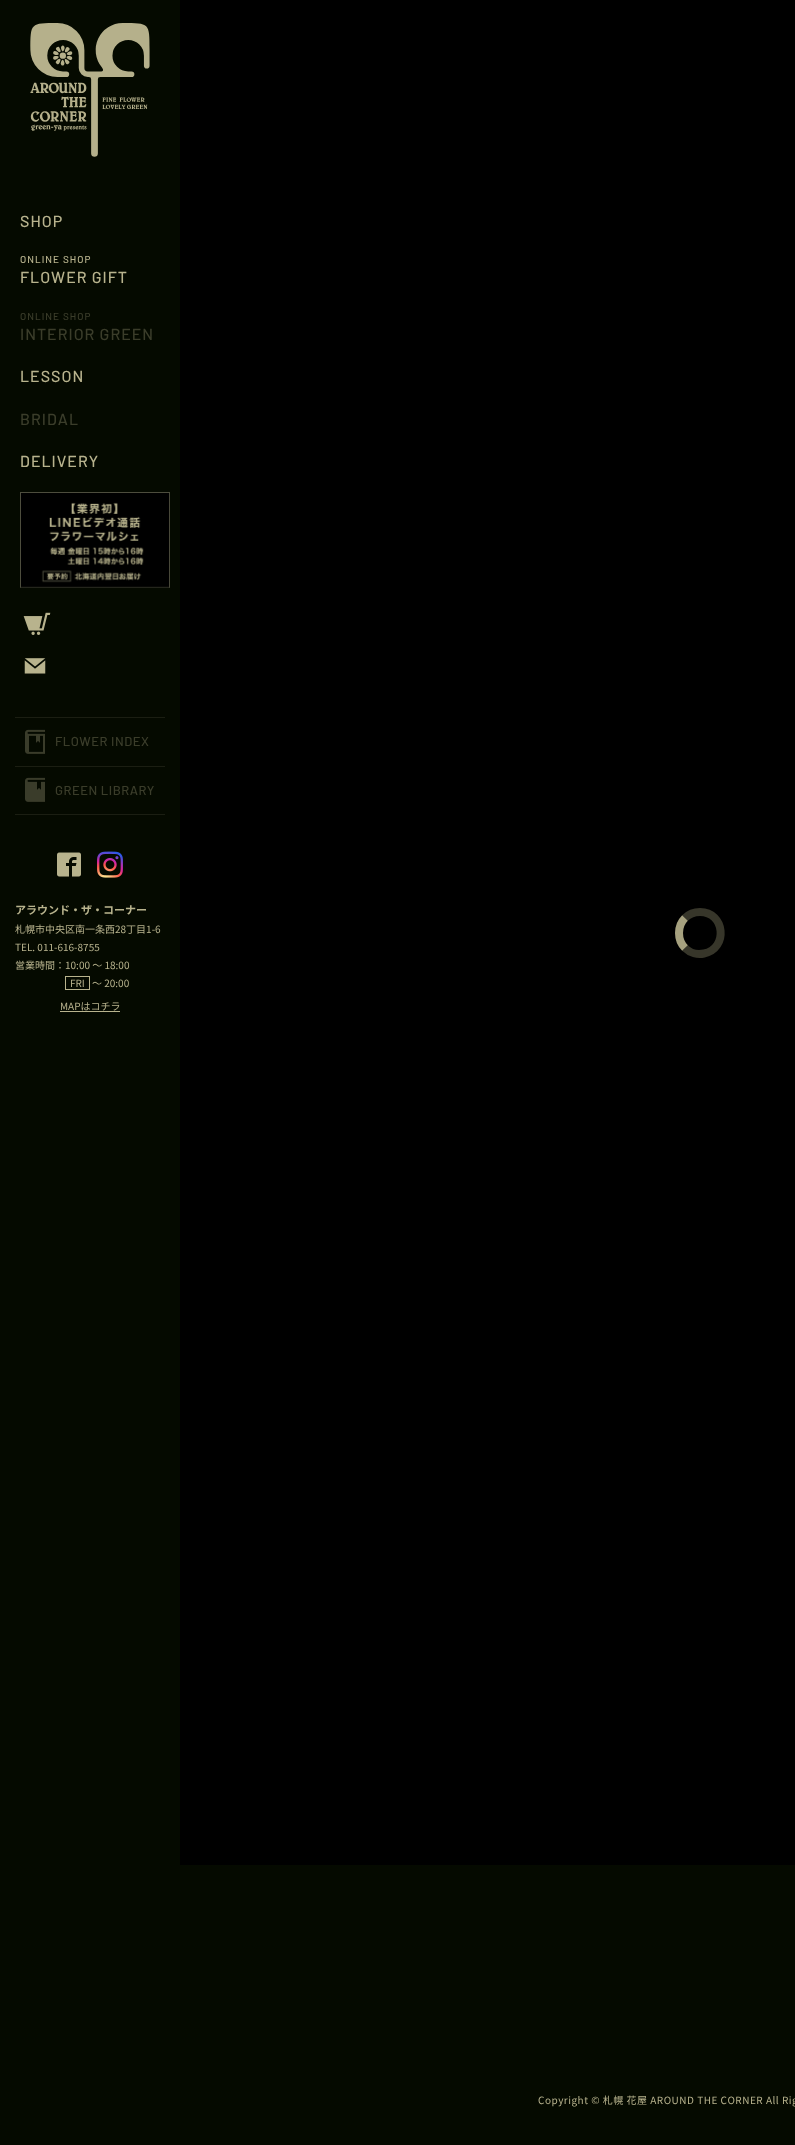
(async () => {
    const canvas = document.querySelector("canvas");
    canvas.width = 795;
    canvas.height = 2145;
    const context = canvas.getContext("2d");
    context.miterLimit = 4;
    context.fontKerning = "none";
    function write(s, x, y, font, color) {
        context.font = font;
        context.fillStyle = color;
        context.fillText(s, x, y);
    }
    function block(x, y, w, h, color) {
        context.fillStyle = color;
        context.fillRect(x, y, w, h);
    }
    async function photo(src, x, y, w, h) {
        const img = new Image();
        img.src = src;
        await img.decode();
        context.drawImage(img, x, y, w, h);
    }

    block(0, 0, 795, 2145, "rgb(5, 10, 0)");
    await photo("media/1.png", 30, 23, 120, 134);
    context.letterSpacing = "1px";
    write("SHOP", 20, 227, "500 16px Barlow", "rgb(184, 179, 141)");
    write("ONLINE SHOP", 20, 263, "500 10px Barlow", "rgb(184, 179, 141)");
    write("FLOWER GIFT", 20, 283, "500 16px Barlow", "rgb(184, 179, 141)");
    write("ONLINE SHOP", 20, 320, "500 10px Barlow", "rgb(59, 61, 42)");
    write("INTERIOR GREEN", 20, 340, "500 16px Barlow", "rgb(59, 61, 42)");
    write("LESSON", 20, 382, "500 16px Barlow", "rgb(184, 179, 141)");
    write("BRIDAL", 20, 425, "500 16px Barlow", "rgb(59, 61, 42)");
    write("DELIVERY", 20, 467, "500 16px Barlow", "rgb(184, 179, 141)");
    await photo("media/2.png", 20, 492, 150, 96);
    await photo("media/3.png", 23, 612, 28, 23);
    await photo("media/4.png", 24, 658, 22, 16);
    block(15, 717, 150, 1, "rgb(27, 30, 18)");
    await photo("media/5.png", 25, 729, 20, 25);
    context.letterSpacing = "0.5px";
    write("FLOWER INDEX", 55, 746, "500 13px Barlow", "rgb(59, 61, 42)");
    block(15, 766, 150, 1, "rgb(27, 30, 18)");
    await photo("media/6.png", 25, 777, 20, 25);
    write("GREEN LIBRARY", 55, 795, "500 13px Barlow", "rgb(59, 61, 42)");
    block(15, 814, 150, 1, "rgb(27, 30, 18)");
    await photo("media/7.png", 57, 852, 24, 25);
    await photo("media/8.png", 97, 851, 26, 27);
    context.letterSpacing = "0px";
    write("アラウンド・ザ・コーナー", 15, 914, "bold 11px Noto Sans JP", "rgb(184, 179, 141)");
    write("札幌市中央区南一条西28丁目1-6", 15, 933, "10px Noto Sans JP", "rgb(184, 179, 141)");
    write("TEL. 011-616-8755", 15, 951, "10px Noto Sans JP", "rgb(184, 179, 141)");
    write("営業時間：10:00 ～ 18:00", 15, 969, "10px Noto Sans JP", "rgb(184, 179, 141)");
    context.strokeStyle = "rgb(184, 179, 141)";
    context.strokeRect(65.5, 976.5, 24, 13);
    write("FRI", 70, 987, "10px Noto Sans JP", "rgb(184, 179, 141)");
    write("～ 20:00", 92, 987, "10px Noto Sans JP", "rgb(184, 179, 141)");
    write("MAPはコチラ", 60, 1010, "10px Noto Sans JP", "rgb(184, 179, 141)");
    block(60, 1011, 60, 1, "rgb(184, 179, 141)");
    block(180, 0, 615, 1865, "rgb(0, 0, 0)");
    context.beginPath();
    context.moveTo(685, 918);
    context.bezierCurveTo(689, 914, 694.5, 912, 700, 912);
    context.bezierCurveTo(725, 912, 728.5, 948.5, 704, 953.5);
    context.bezierCurveTo(697.5, 955, 690, 953, 685, 948);
    context.strokeStyle = "rgb(55, 54, 42)";
    context.lineWidth = 8;
    context.stroke();
    context.beginPath();
    context.moveTo(685, 948);
    context.bezierCurveTo(677, 940, 677, 926, 685, 918);
    context.strokeStyle = "rgba(184, 179, 141, 0.9)";
    context.stroke();
    context.letterSpacing = "0.5px";
    write("Copyright © 札幌 花屋 AROUND THE CORNER All Rig", 538, 2104, "10px Noto Sans JP", "rgb(184, 179, 141)");
})();
